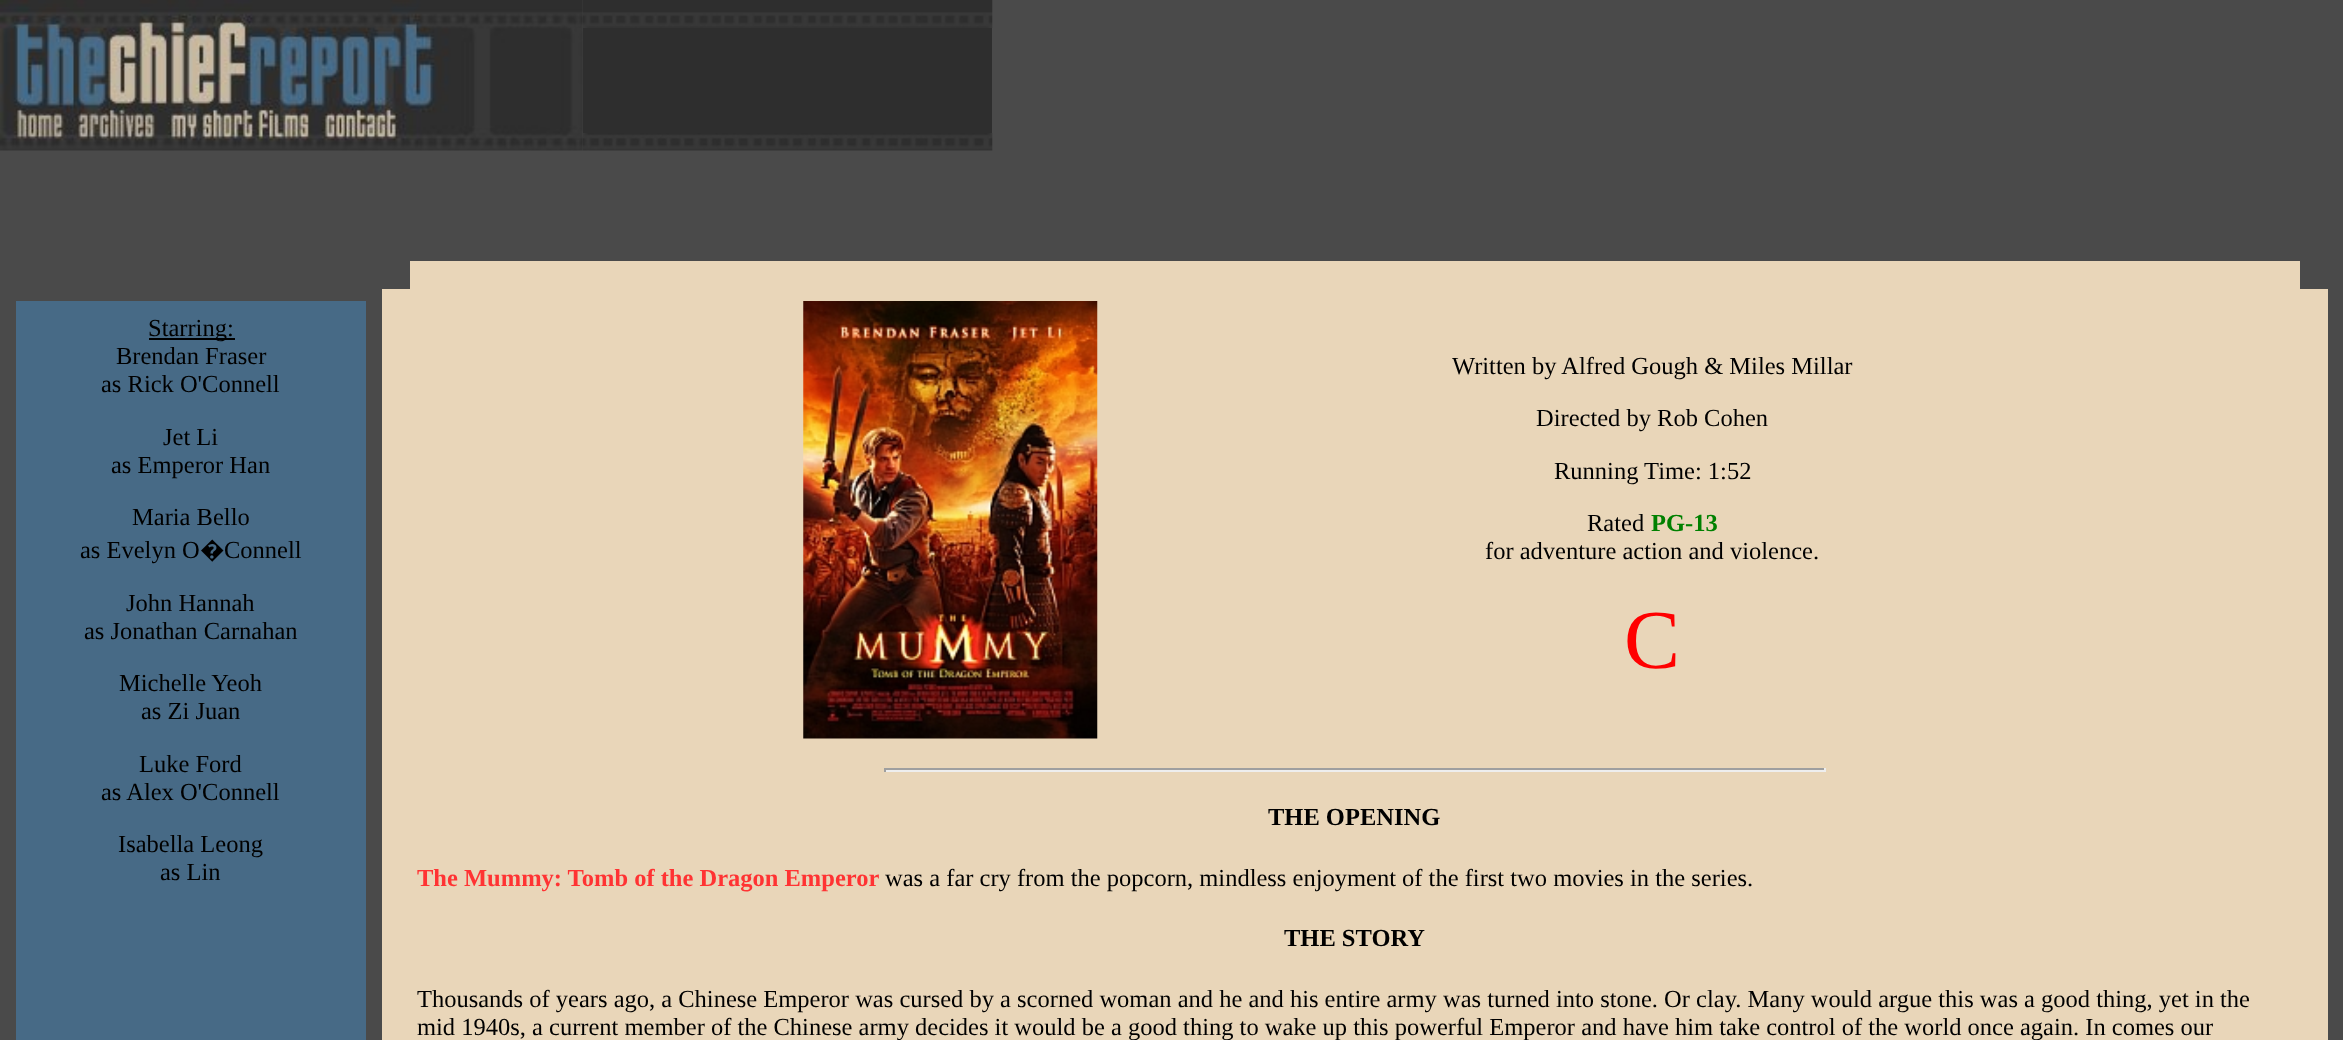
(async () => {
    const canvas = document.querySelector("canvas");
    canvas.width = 2343;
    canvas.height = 1040;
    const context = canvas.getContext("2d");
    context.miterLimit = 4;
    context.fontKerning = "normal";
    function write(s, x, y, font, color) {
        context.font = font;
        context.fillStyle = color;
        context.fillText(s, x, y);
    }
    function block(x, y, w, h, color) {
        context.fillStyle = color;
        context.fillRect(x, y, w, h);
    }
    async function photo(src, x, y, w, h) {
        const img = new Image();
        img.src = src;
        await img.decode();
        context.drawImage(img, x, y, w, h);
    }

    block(0, 0, 2343, 1040, "rgb(74, 74, 74)");
    await photo("media/1.png", 0, 0, 583, 151);
    await photo("media/2.png", 583, 0, 410, 28);
    block(583, 28, 409, 105, "rgb(46, 46, 46)");
    await photo("media/3.png", 583, 133, 410, 18);
    block(16, 301, 350, 739, "rgb(71, 106, 134)");
    block(149, 338, 86, 2, "rgb(0, 0, 0)");
    write("Starring:", 148, 336, "24.5px Liberation Serif", "rgb(0, 0, 0)");
    write("Brendan Fraser", 116, 364, "24.5px Liberation Serif", "rgb(0, 0, 0)");
    write("as Rick O'Connell", 101, 392, "24.5px Liberation Serif", "rgb(0, 0, 0)");
    write("Jet Li", 163, 445, "24.5px Liberation Serif", "rgb(0, 0, 0)");
    write("as Emperor Han", 111, 473, "24.5px Liberation Serif", "rgb(0, 0, 0)");
    write("Maria Bello", 132, 525, "24.5px Liberation Serif", "rgb(0, 0, 0)");
    write("as Evelyn O", 80, 558, "24.5px Liberation Serif", "rgb(0, 0, 0)");
    write("�", 200, 558, "24.5px Noto Sans", "rgb(0, 0, 0)");
    write("Connell", 224, 558, "24.5px Liberation Serif", "rgb(0, 0, 0)");
    write("John Hannah", 126, 611, "24.5px Liberation Serif", "rgb(0, 0, 0)");
    write("as Jonathan Carnahan", 84, 639, "24.5px Liberation Serif", "rgb(0, 0, 0)");
    write("Michelle Yeoh", 119, 691, "24.5px Liberation Serif", "rgb(0, 0, 0)");
    write("as Zi Juan", 141, 719, "24.5px Liberation Serif", "rgb(0, 0, 0)");
    write("Luke Ford", 139, 772, "24.5px Liberation Serif", "rgb(0, 0, 0)");
    write("as Alex O'Connell", 101, 800, "24.5px Liberation Serif", "rgb(0, 0, 0)");
    write("Isabella Leong", 118, 852, "24.5px Liberation Serif", "rgb(0, 0, 0)");
    write("as Lin", 160, 880, "24.5px Liberation Serif", "rgb(0, 0, 0)");
    block(410, 261, 1890, 28, "rgb(233, 214, 185)");
    block(382, 289, 1946, 751, "rgb(233, 214, 185)");
    await photo("media/4.png", 803, 301, 295, 438);
    write("Written by Alfred Gough & Miles Millar", 1452, 374, "24.5px Liberation Serif", "rgb(0, 0, 0)");
    write("Directed by Rob Cohen", 1536, 426, "24.5px Liberation Serif", "rgb(0, 0, 0)");
    write("Running Time: 1:52", 1554, 479, "24.5px Liberation Serif", "rgb(0, 0, 0)");
    write("Rated", 1587, 531, "24.5px Liberation Serif", "rgb(0, 0, 0)");
    write("PG-13", 1651, 531, "bold 24.5px Liberation Serif", "rgb(0, 128, 0)");
    write("for adventure action and violence.", 1485, 559, "24.5px Liberation Serif", "rgb(0, 0, 0)");
    write("C", 1624, 668, "84px Liberation Serif", "rgb(255, 0, 0)");
    block(884, 768, 941, 2, "rgb(159, 159, 159)");
    block(1824, 768, 2, 4, "rgb(238, 238, 238)");
    block(884, 770, 941, 2, "rgb(238, 238, 238)");
    block(884, 768, 2, 4, "rgb(159, 159, 159)");
    write("THE OPENING", 1268, 825, "bold 24.5px Liberation Serif", "rgb(0, 0, 0)");
    write("The Mummy: Tomb of the Dragon Emperor", 417, 886, "bold 24.5px Liberation Serif", "rgb(255, 51, 51)");
    write("was a far cry from the popcorn, mindless enjoyment of the first two movies in the series.", 885, 886, "24.5px Liberation Serif", "rgb(0, 0, 0)");
    write("THE STORY", 1284, 946, "bold 24.5px Liberation Serif", "rgb(0, 0, 0)");
    write("Thousands of years ago, a Chinese Emperor was cursed by a scorned woman and he and his entire army was turned into stone. Or clay. Many would argue this was a good thing, yet in the", 417, 1007, "24.5px Liberation Serif", "rgb(0, 0, 0)");
    write("mid 1940s, a current member of the Chinese army decides it would be a good thing to wake up this powerful Emperor and have him take control of the world once again. In comes our", 417, 1035, "24.5px Liberation Serif", "rgb(0, 0, 0)");
})();
